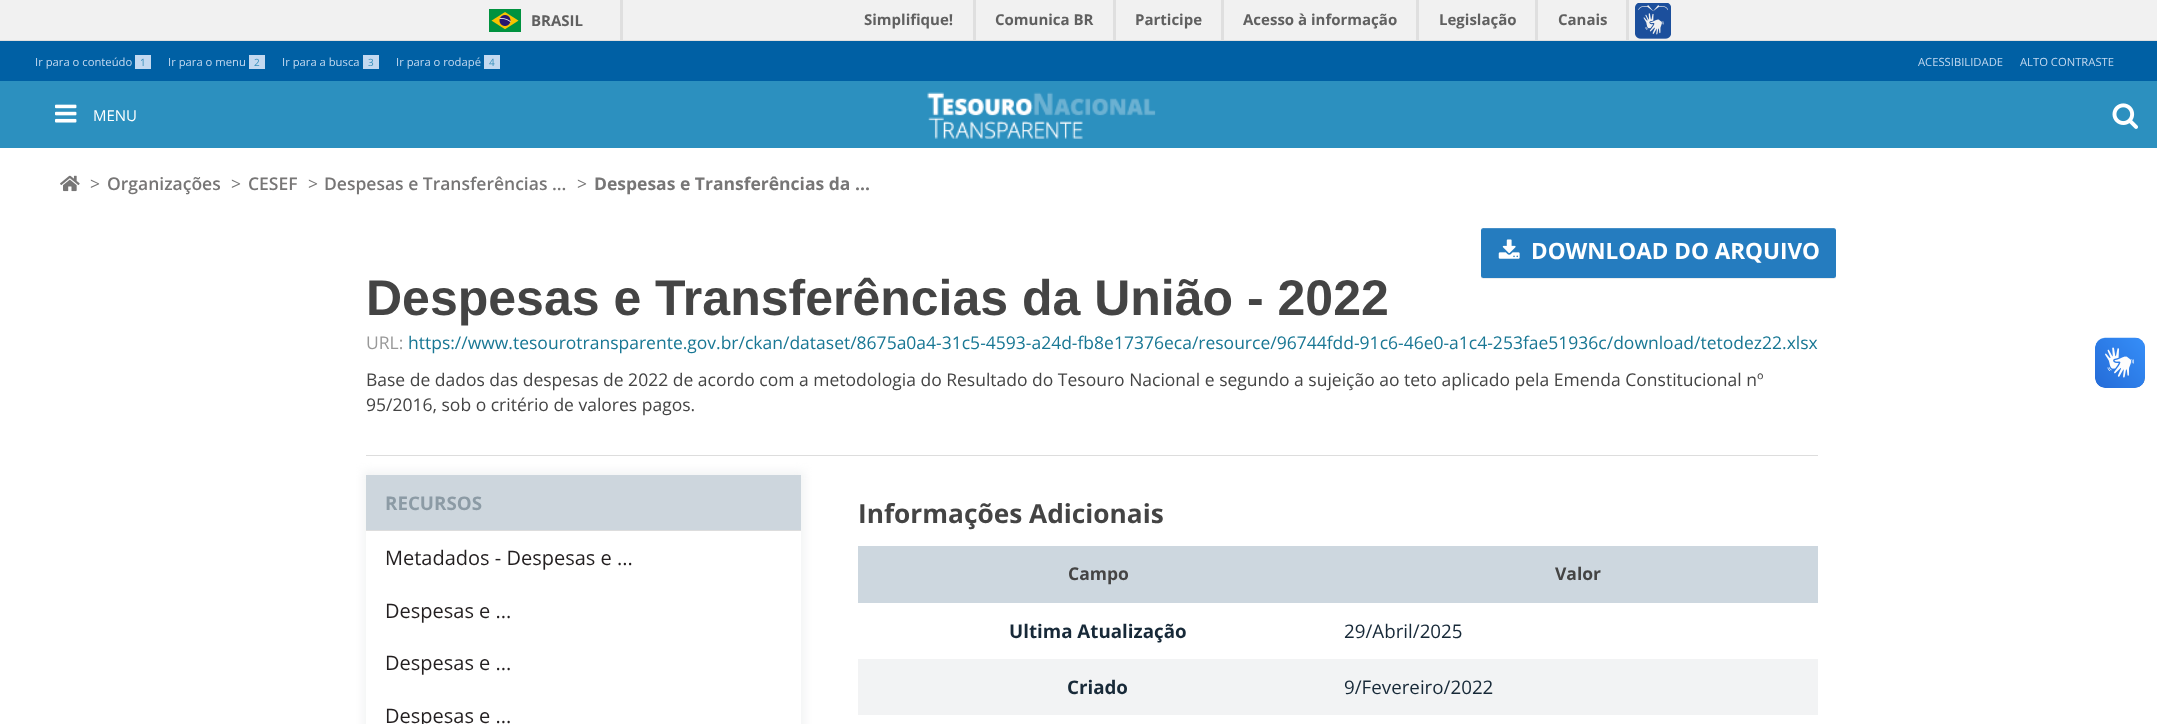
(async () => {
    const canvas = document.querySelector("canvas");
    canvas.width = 2157;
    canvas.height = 724;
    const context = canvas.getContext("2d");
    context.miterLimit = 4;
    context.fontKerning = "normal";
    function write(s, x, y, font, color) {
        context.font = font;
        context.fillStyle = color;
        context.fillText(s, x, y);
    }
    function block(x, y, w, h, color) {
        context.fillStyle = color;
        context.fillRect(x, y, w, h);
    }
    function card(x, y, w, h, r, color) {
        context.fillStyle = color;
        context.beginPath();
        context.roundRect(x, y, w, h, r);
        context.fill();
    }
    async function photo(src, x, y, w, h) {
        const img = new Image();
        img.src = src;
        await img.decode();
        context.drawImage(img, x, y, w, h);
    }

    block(0, 0, 2157, 724, "rgb(255, 255, 255)");
    block(0, 0, 2157, 40, "rgb(241, 241, 241)");
    block(0, 40, 2157, 1, "rgb(223, 223, 223)");
    block(620, 0, 3, 40, "rgb(223, 223, 223)");
    await photo("media/1.png", 489, 9, 32, 23);
    write("BRASIL", 531, 26, "bold 15px Open Sans", "rgb(96, 96, 96)");
    block(973, 0, 3, 40, "rgb(223, 223, 223)");
    write("Simplifique!", 864, 25, "bold 15px Open Sans", "rgb(96, 96, 96)");
    block(1113, 0, 3, 40, "rgb(223, 223, 223)");
    write("Comunica BR", 995, 25, "bold 15px Open Sans", "rgb(96, 96, 96)");
    block(1221, 0, 3, 40, "rgb(223, 223, 223)");
    write("Participe", 1135, 25, "bold 15px Open Sans", "rgb(96, 96, 96)");
    block(1416, 0, 3, 40, "rgb(223, 223, 223)");
    write("Acesso à informação", 1243, 25, "bold 15px Open Sans", "rgb(96, 96, 96)");
    block(1535, 0, 3, 40, "rgb(223, 223, 223)");
    write("Legislação", 1439, 25, "bold 15px Open Sans", "rgb(96, 96, 96)");
    block(1626, 0, 3, 40, "rgb(223, 223, 223)");
    write("Canais", 1558, 25, "bold 15px Open Sans", "rgb(96, 96, 96)");
    await photo("media/2.png", 1635, 3, 36, 36);
    block(0, 41, 2157, 40, "rgb(0, 96, 164)");
    write("Ir para o conteúdo", 35, 66, "11.25px Open Sans", "rgb(195, 217, 240)");
    block(135, 55, 16, 14, "rgb(195, 217, 240)");
    write("1", 140, 66, "10px Open Sans", "rgb(57, 145, 188)");
    write("Ir para o menu", 168, 66, "11.25px Open Sans", "rgb(195, 217, 240)");
    block(249, 55, 16, 14, "rgb(195, 217, 240)");
    write("2", 254, 66, "10px Open Sans", "rgb(57, 145, 188)");
    write("Ir para a busca", 282, 66, "11.25px Open Sans", "rgb(195, 217, 240)");
    block(363, 55, 16, 14, "rgb(195, 217, 240)");
    write("3", 368, 66, "10px Open Sans", "rgb(57, 145, 188)");
    write("Ir para o rodapé", 396, 66, "11.25px Open Sans", "rgb(195, 217, 240)");
    block(484, 55, 16, 14, "rgb(195, 217, 240)");
    write("4", 489, 66, "10px Open Sans", "rgb(57, 145, 188)");
    write("ACESSIBILIDADE", 1918, 66, "11.25px Open Sans", "rgb(195, 217, 240)");
    write("ALTO CONTRASTE", 2020, 66, "11.25px Open Sans", "rgb(195, 217, 240)");
    block(0, 81, 2157, 67, "rgb(44, 144, 191)");
    await photo("media/3.png", 55, 104, 22, 19);
    write("MENU", 93, 121, "15px Open Sans", "rgb(255, 255, 255)");
    await photo("media/4.png", 927, 92, 229, 47);
    await photo("media/5.png", 2112, 103, 26, 26);
    await photo("media/6.png", 60, 175, 20, 17);
    write(">", 90, 190, "17.5px Open Sans", "rgb(119, 118, 118)");
    write("Organizações", 107, 190, "600 17.5px Open Sans", "rgb(119, 118, 118)");
    write(">", 231, 190, "17.5px Open Sans", "rgb(119, 118, 118)");
    write("CESEF", 248, 190, "600 17.5px Open Sans", "rgb(119, 118, 118)");
    write(">", 308, 190, "17.5px Open Sans", "rgb(119, 118, 118)");
    write("Despesas e Transferências ...", 324, 190, "600 17.5px Open Sans", "rgb(119, 118, 118)");
    write(">", 577, 190, "17.5px Open Sans", "rgb(119, 118, 118)");
    write("Despesas e Transferências da ...", 594, 190, "bold 17.5px Open Sans", "rgb(119, 118, 118)");
    block(366, 455, 1452, 1, "rgb(221, 221, 221)");
    context.fillStyle = "rgba(0, 0, 0, 0.07)";
    context.filter = "blur(0.5px)";
    context.beginPath();
    context.roundRect(1481, 229, 355, 50, 2.5);
    context.fill();
    context.filter = "none";
    card(1481, 228, 355, 50, 2.5, "rgb(37, 124, 191)");
    context.fillStyle = "rgba(255, 255, 255, 0.15)";
    context.beginPath();
    context.moveTo(1484, 229);
    context.lineTo(1834, 229);
    context.bezierCurveTo(1835, 229, 1836, 230, 1836, 231);
    context.bezierCurveTo(1836, 229, 1835, 228, 1834, 228);
    context.lineTo(1484, 228);
    context.bezierCurveTo(1482, 228, 1481, 229, 1481, 231);
    context.bezierCurveTo(1481, 230, 1482, 229, 1484, 229);
    context.closePath();
    context.fill();
    await photo("media/7.png", 1498, 239, 22, 20);
    write("DOWNLOAD DO ARQUIVO", 1531, 259, "bold 22.5px Open Sans", "rgb(255, 255, 255)");
    write("Despesas e Transferências da União - 2022", 366, 315, "bold 50px Liberation Sans", "rgb(68, 68, 68)");
    write("URL:", 366, 349, "17.5px Open Sans", "rgb(153, 153, 153)");
    write("https://www.tesourotransparente.gov.br/ckan/dataset/8675a0a4-31c5-4593-a24d-fb8e17376eca/resource/96744fdd-91c6-46e0-a1c4-253fae51936c/download/tetodez22.xlsx", 408, 349, "17.5px Open Sans", "rgb(24, 119, 148)");
    write("Base de dados das despesas de 2022 de acordo com a metodologia do Resultado do Tesouro Nacional e segundo a sujeição ao teto aplicado pela Emenda Constitucional nº", 366, 386, "17.5px Open Sans", "rgb(68, 68, 68)");
    write("95/2016, sob o critério de valores pagos.", 366, 411, "17.5px Open Sans", "rgb(68, 68, 68)");
    context.fillStyle = "rgb(242, 243, 244)";
    context.filter = "blur(5px)";
    context.beginPath();
    context.rect(363, 471, 442, 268);
    context.fill();
    context.filter = "none";
    block(366, 531, 435, 193, "rgb(255, 255, 255)");
    block(366, 475, 435, 55, "rgb(205, 214, 221)");
    block(366, 530, 435, 1, "rgb(221, 221, 221)");
    write("RECURSOS", 385, 510, "bold 18.75px Open Sans", "rgb(140, 155, 165)");
    write("Metadados - Despesas e ...", 385, 565, "20px Open Sans", "rgb(35, 31, 32)");
    write("Despesas e ...", 385, 618, "20px Open Sans", "rgb(35, 31, 32)");
    write("Despesas e ...", 385, 670, "20px Open Sans", "rgb(35, 31, 32)");
    write("Despesas e ...", 385, 723, "20px Open Sans", "rgb(35, 31, 32)");
    write("Informações Adicionais", 858, 523, "bold 26.25px Open Sans", "rgb(68, 68, 68)");
    block(858, 546, 960, 57, "rgb(205, 215, 223)");
    write("Campo", 1068, 580, "bold 17.5px Open Sans", "rgb(68, 68, 68)");
    write("Valor", 1555, 580, "bold 17.5px Open Sans", "rgb(68, 68, 68)");
    write("Ultima Atualização", 1009, 638, "bold 18.75px Open Sans", "rgb(23, 41, 56)");
    write("29/Abril/2025", 1344, 638, "18.75px Open Sans", "rgb(23, 41, 56)");
    block(858, 659, 960, 56, "rgb(242, 243, 244)");
    write("Criado", 1067, 694, "bold 18.75px Open Sans", "rgb(23, 41, 56)");
    write("9/Fevereiro/2022", 1344, 694, "18.75px Open Sans", "rgb(23, 41, 56)");
    await photo("media/8.png", 2095, 337, 50, 51);
    await photo("media/9.png", 2095, 338, 50, 50);
})();
